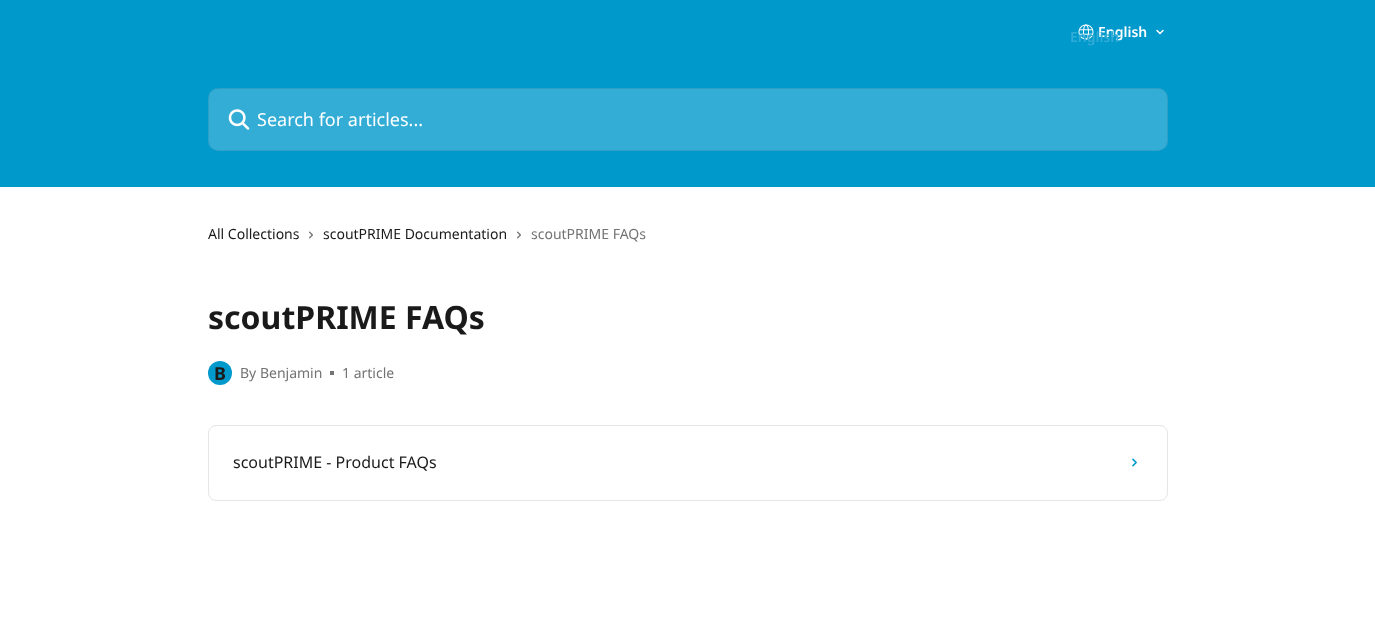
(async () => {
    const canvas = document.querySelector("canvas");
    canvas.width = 1375;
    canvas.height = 628;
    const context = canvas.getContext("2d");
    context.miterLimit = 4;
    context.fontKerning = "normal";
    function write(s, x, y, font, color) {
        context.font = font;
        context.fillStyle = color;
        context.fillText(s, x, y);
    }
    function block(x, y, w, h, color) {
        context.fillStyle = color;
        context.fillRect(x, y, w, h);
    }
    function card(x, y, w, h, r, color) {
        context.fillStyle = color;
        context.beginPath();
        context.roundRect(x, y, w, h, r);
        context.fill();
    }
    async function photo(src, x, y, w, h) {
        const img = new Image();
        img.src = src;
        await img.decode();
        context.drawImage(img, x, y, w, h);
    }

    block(0, 0, 1375, 628, "rgb(255, 255, 255)");
    block(0, 0, 1375, 187, "rgb(0, 153, 204)");
    await photo("media/1.png", 1078, 24, 16, 16);
    write("English", 1098, 37, "600 14px Noto Sans", "rgb(255, 255, 255)");
    write("English", 1070, 42, "600 14px Noto Sans", "rgb(49, 172, 214)");
    context.beginPath();
    context.moveTo(1157, 30.5);
    context.lineTo(1160, 33.5);
    context.lineTo(1163, 30.5);
    context.strokeStyle = "rgb(255, 255, 255)";
    context.lineWidth = 1.5;
    context.lineCap = "round";
    context.lineJoin = "round";
    context.stroke();
    card(208, 88, 960, 63, 10, "rgba(255, 255, 255, 0.2)");
    context.beginPath();
    context.roundRect(208.5, 88.5, 959, 62, 9.5);
    context.strokeStyle = "rgba(0, 0, 0, 0.08)";
    context.lineWidth = 1;
    context.lineJoin = "miter";
    context.stroke();
    await photo("media/2.png", 228, 109, 22, 21);
    write("Search for articles...", 257, 126, "18px Noto Sans", "rgb(255, 255, 255)");
    write("All Collections", 208, 239, "14px Noto Sans", "rgb(26, 26, 26)");
    await photo("media/3.png", 309, 231, 4, 8);
    write("scoutPRIME Documentation", 323, 239, "14px Noto Sans", "rgb(26, 26, 26)");
    await photo("media/3.png", 517, 231, 4, 8);
    write("scoutPRIME FAQs", 531, 239, "14px Noto Sans", "rgb(115, 115, 115)");
    write("scoutPRIME FAQs", 208, 329, "bold 32px Noto Sans", "rgb(26, 26, 26)");
    context.fillStyle = "rgb(0, 153, 204)";
    context.beginPath();
    context.arc(220, 373, 12, 0, Math.PI * 2);
    context.fill();
    write("B", 214, 380, "bold 18px Noto Sans", "rgb(26, 26, 26)");
    write("By Benjamin", 240, 378, "14px Noto Sans", "rgb(115, 115, 115)");
    block(330, 371, 4, 4, "rgb(115, 115, 115)");
    write("1 article", 342, 378, "14px Noto Sans", "rgb(115, 115, 115)");
    context.beginPath();
    context.roundRect(208.5, 425.5, 959, 75, 7.5);
    context.strokeStyle = "rgb(230, 230, 230)";
    context.stroke();
    write("scoutPRIME - Product FAQs", 233, 468, "16px Noto Sans", "rgb(26, 26, 26)");
    await photo("media/4.png", 1132, 458, 5, 9);
})();
